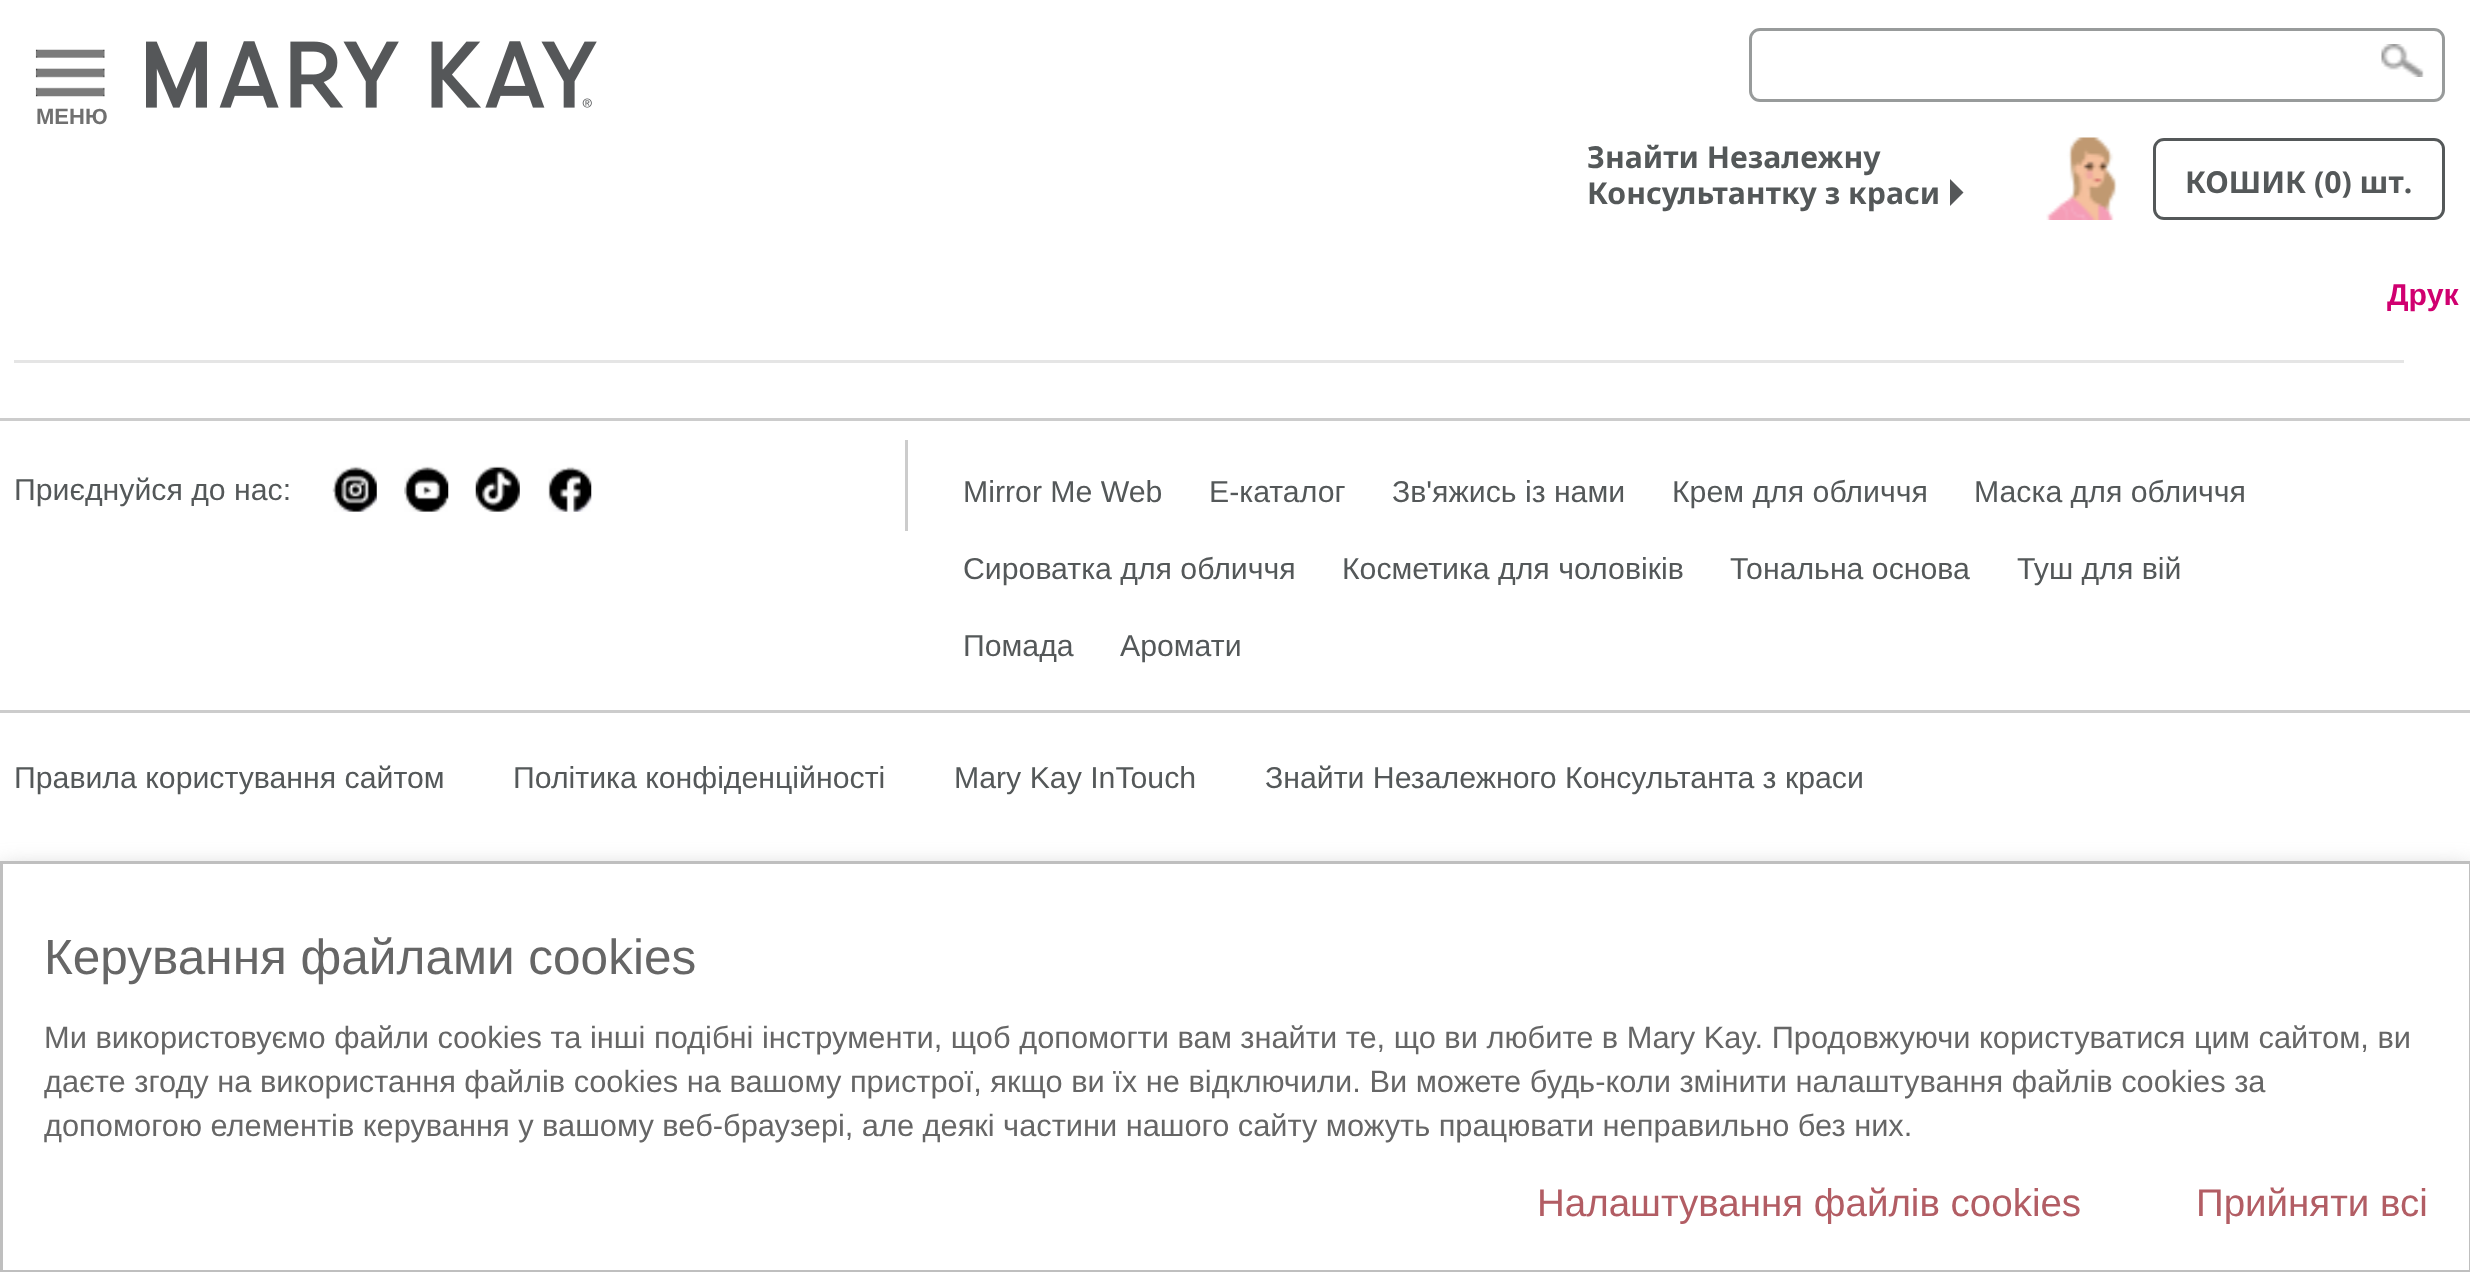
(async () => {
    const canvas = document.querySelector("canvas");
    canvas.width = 2470;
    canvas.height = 1272;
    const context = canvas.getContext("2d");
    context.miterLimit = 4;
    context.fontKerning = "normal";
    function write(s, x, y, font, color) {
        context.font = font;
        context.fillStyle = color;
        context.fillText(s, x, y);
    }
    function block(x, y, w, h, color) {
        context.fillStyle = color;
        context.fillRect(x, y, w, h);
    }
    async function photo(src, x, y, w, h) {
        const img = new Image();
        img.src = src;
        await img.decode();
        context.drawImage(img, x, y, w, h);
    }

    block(0, 0, 2470, 1272, "rgb(255, 255, 255)");
    await photo("media/1.png", 2381, 44, 43, 33);
    context.fillStyle = "rgba(255, 255, 255, 0.6)";
    context.beginPath();
    context.roundRect(1750.5, 29.5, 693, 71, 9.5);
    context.fill();
    context.strokeStyle = "rgb(152, 155, 155)";
    context.lineWidth = 3;
    context.stroke();
    await photo("media/2.png", 146, 41, 451, 67);
    await photo("media/3.png", 35, 49, 70, 48);
    write("МЕНЮ", 36, 124, "bold 22px Liberation Sans", "rgb(112, 112, 112)");
    write("Знайти Незалежну", 1587, 168, "bold 30.25px Noto Sans", "rgb(84, 88, 89)");
    write("Консультантку з краси", 1587, 204, "bold 30.25px Noto Sans", "rgb(84, 88, 89)");
    context.fillStyle = "rgb(85, 87, 89)";
    context.beginPath();
    context.moveTo(1950, 206);
    context.lineTo(1950, 179);
    context.lineTo(1963.5, 192.5);
    context.closePath();
    context.fill();
    await photo("media/4.png", 2046, 137, 71, 83);
    context.beginPath();
    context.roundRect(2154.5, 139.5, 289, 79, 9.5);
    context.strokeStyle = "rgb(84, 88, 89)";
    context.stroke();
    write("КОШИК (0) шт.", 2185, 193, "bold 30.25px Noto Sans", "rgb(84, 88, 89)");
    write("Друк", 2387, 305, "bold 30.25px Liberation Sans", "rgb(208, 0, 112)");
    block(14, 360, 2390, 3, "rgb(229, 229, 229)");
    block(0, 418, 2470, 3, "rgb(204, 204, 204)");
    block(0, 710, 2470, 3, "rgb(204, 204, 204)");
    block(905, 440, 3, 91, "rgb(204, 204, 204)");
    write("Приєднуйся до нас:", 14, 500, "30.25px Liberation Sans", "rgb(84, 88, 89)");
    await photo("media/5.png", 332, 466, 45, 46);
    await photo("media/6.png", 404, 466, 45, 46);
    await photo("media/7.png", 475, 466, 45, 46);
    await photo("media/8.png", 548, 466, 44, 46);
    write("Mirror Me Web", 963, 502, "30.25px Liberation Sans", "rgb(84, 88, 89)");
    write("E-каталог", 1209, 502, "30.25px Liberation Sans", "rgb(84, 88, 89)");
    write("Зв'яжись із нами", 1392, 502, "30.25px Liberation Sans", "rgb(84, 88, 89)");
    write("Крем для обличчя", 1672, 502, "30.25px Liberation Sans", "rgb(84, 88, 89)");
    write("Маска для обличчя", 1974, 502, "30.25px Liberation Sans", "rgb(84, 88, 89)");
    write("Сироватка для обличчя", 963, 579, "30.25px Liberation Sans", "rgb(84, 88, 89)");
    write("Косметика для чоловіків", 1342, 579, "30.25px Liberation Sans", "rgb(84, 88, 89)");
    write("Тональна основа", 1730, 579, "30.25px Liberation Sans", "rgb(84, 88, 89)");
    write("Туш для вій", 2017, 579, "30.25px Liberation Sans", "rgb(84, 88, 89)");
    write("Помада", 963, 656, "30.25px Liberation Sans", "rgb(84, 88, 89)");
    write("Аромати", 1120, 656, "30.25px Liberation Sans", "rgb(84, 88, 89)");
    write("Правила користування сайтом", 14, 788, "30.25px Liberation Sans", "rgb(84, 88, 89)");
    write("Політика конфіденційності", 513, 788, "30.25px Liberation Sans", "rgb(84, 88, 89)");
    write("Mary Kay InTouch", 954, 788, "30.25px Liberation Sans", "rgb(84, 88, 89)");
    write("Знайти Незалежного Консультанта з краси", 1265, 788, "30.25px Liberation Sans", "rgb(84, 88, 89)");
    context.fillStyle = "rgb(153, 153, 153)";
    context.filter = "blur(14px)";
    context.beginPath();
    context.rect(0, 875, 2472, 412);
    context.fill();
    context.filter = "none";
    context.fillStyle = "rgb(255, 255, 255)";
    context.beginPath();
    context.rect(1.5, 862.5, 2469, 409);
    context.fill();
    context.strokeStyle = "rgb(191, 191, 191)";
    context.stroke();
    write("Керування файлами cookies", 44, 974, "49.5px Liberation Sans", "rgb(102, 102, 102)");
    write("Ми використовуємо файли cookies та інші подібні інструменти, щоб допомогти вам знайти те, що ви любите в Mary Kay. Продовжуючи користуватися цим сайтом, ви", 44, 1048, "30.8px Liberation Sans", "rgb(102, 102, 102)");
    write("даєте згоду на використання файлів cookies на вашому пристрої, якщо ви їх не відключили. Ви можете будь-коли змінити налаштування файлів cookies за", 44, 1092, "30.8px Liberation Sans", "rgb(102, 102, 102)");
    context.wordSpacing = "-0.1px";
    write("допомогою елементів керування у вашому веб-браузері, але деякі частини нашого сайту можуть працювати неправильно без них.", 44, 1136, "30.8px Liberation Sans", "rgb(102, 102, 102)");
    context.wordSpacing = "0px";
    write("Налаштування файлів cookies", 1537, 1216, "38.5px Liberation Sans", "rgb(178, 93, 100)");
    write("Прийняти всі", 2196, 1216, "38.5px Liberation Sans", "rgb(178, 93, 100)");
})();
